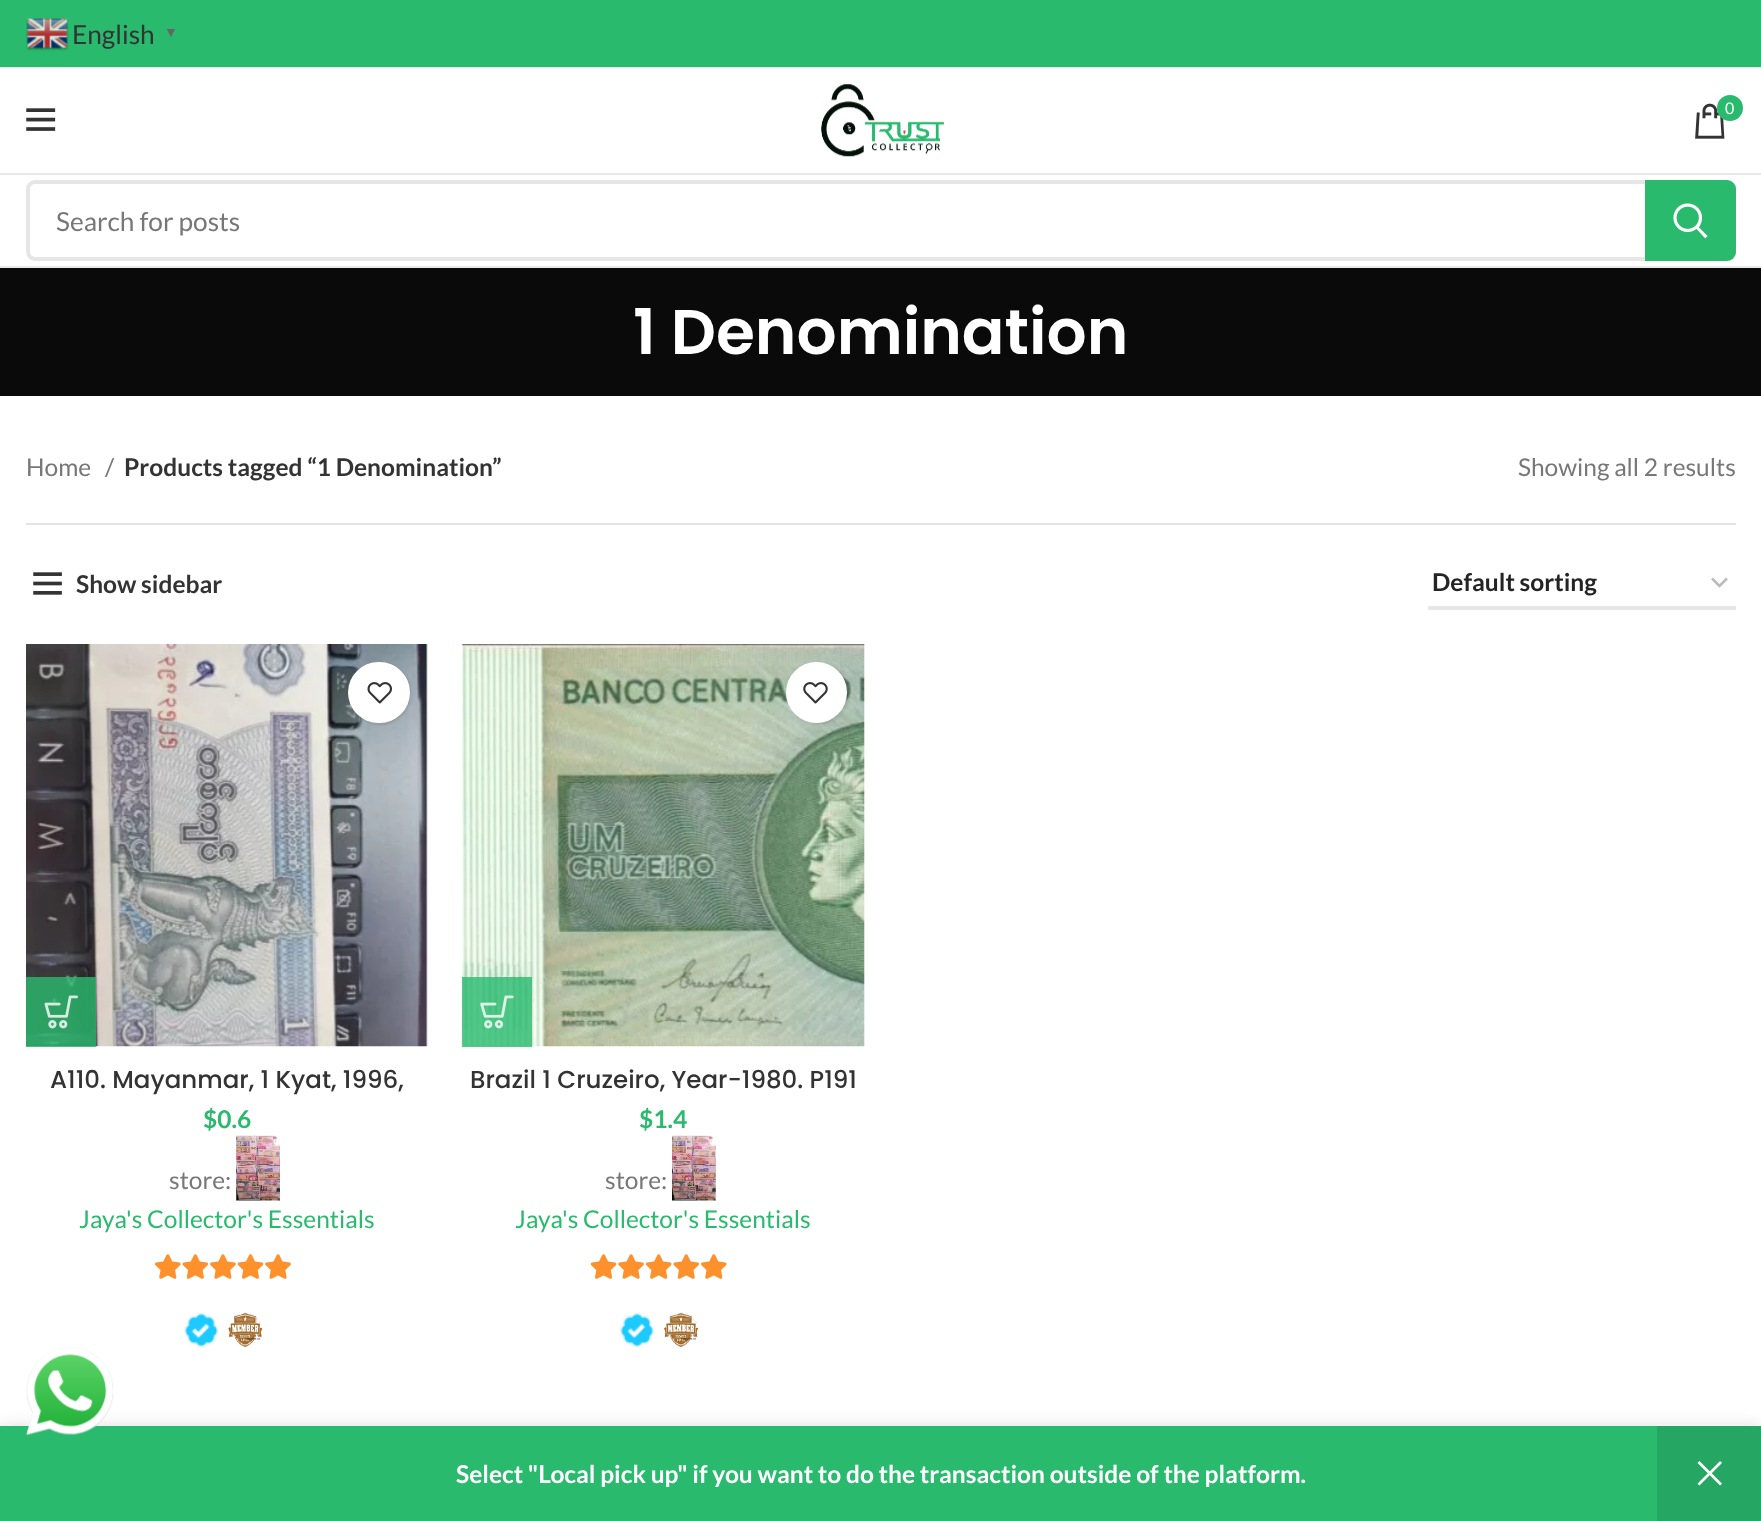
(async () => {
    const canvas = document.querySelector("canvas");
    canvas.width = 1761;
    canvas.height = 1521;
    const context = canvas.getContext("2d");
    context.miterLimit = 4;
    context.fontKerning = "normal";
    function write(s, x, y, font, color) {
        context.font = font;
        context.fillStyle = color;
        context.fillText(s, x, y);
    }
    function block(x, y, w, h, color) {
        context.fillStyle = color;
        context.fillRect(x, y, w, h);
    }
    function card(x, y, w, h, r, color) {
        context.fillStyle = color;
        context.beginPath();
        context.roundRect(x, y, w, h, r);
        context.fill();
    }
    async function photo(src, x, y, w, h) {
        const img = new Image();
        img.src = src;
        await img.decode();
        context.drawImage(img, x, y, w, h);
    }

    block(0, 0, 1761, 1521, "rgb(255, 255, 255)");
    block(0, 0, 1761, 67, "rgb(41, 186, 110)");
    block(0, 67, 1761, 1, "rgb(232, 232, 232)");
    await photo("media/1.png", 26, 18, 43, 33);
    write("English", 72, 44, "26.25px Lato", "rgb(51, 51, 51)");
    write("▼", 164, 37, "bold 14px Liberation Sans", "rgb(102, 102, 102)");
    block(0, 173, 1761, 2, "rgb(232, 232, 232)");
    await photo("media/2.png", 26, 108, 30, 23);
    await photo("media/3.png", 821, 83, 123, 74);
    await photo("media/4.png", 1695, 103, 30, 36);
    context.fillStyle = "rgb(41, 186, 110)";
    context.beginPath();
    context.arc(1730, 108, 13, 0, Math.PI * 2);
    context.fill();
    write("0", 1725, 114, "16px Lato", "rgb(255, 255, 255)");
    block(0, 266, 1761, 2, "rgb(232, 232, 232)");
    context.beginPath();
    context.roundRect(28, 182, 1706, 77, 7);
    context.strokeStyle = "rgb(230, 230, 230)";
    context.lineWidth = 4;
    context.stroke();
    write("Search for posts", 56, 231, "26.25px Lato", "rgb(119, 119, 119)");
    context.fillStyle = "rgb(41, 186, 110)";
    context.beginPath();
    context.roundRect(1645, 180, 91, 81, [0, 9, 9, 0]);
    context.fill();
    await photo("media/5.png", 1673, 203, 35, 36);
    block(0, 268, 1761, 128, "rgb(10, 10, 10)");
    write("1 Denomination", 633, 354, "600 63px Poppins", "rgb(255, 255, 255)");
    block(26, 523, 1710, 2, "rgb(228, 228, 228)");
    write("Home", 26, 476, "24.5px Lato", "rgb(119, 119, 119)");
    write("/", 105, 476, "24.5px Lato", "rgb(119, 119, 119)");
    write("Products tagged “1 Denomination”", 124, 476, "bold 24.5px Lato", "rgb(51, 51, 51)");
    write("Showing all 2 results", 1518, 476, "24.5px Lato", "rgb(119, 119, 119)");
    await photo("media/6.png", 33, 572, 29, 23);
    write("Show sidebar", 76, 593, "bold 24.5px Lato", "rgb(51, 51, 51)");
    context.beginPath();
    context.moveTo(1712, 578.5);
    context.lineTo(1719.5, 586);
    context.lineTo(1727, 578.5);
    context.strokeStyle = "rgb(187, 187, 187)";
    context.lineWidth = 2.5;
    context.stroke();
    block(1428, 606, 308, 4, "rgb(230, 230, 230)");
    write("Default sorting", 1432, 591, "bold 24.5px Lato", "rgb(36, 36, 36)");
    await photo("media/7.png", 26, 644, 402, 403);
    context.fillStyle = "rgba(0, 0, 0, 0.1)";
    context.filter = "blur(1px)";
    context.beginPath();
    context.roundRect(350, 663, 61, 62, 30.5);
    context.fill();
    context.filter = "none";
    card(348, 662, 62, 61, 30.5, "rgb(255, 255, 255)");
    await photo("media/8.png", 367, 682, 25, 22);
    block(26, 977, 70, 70, "rgba(41, 186, 110, 0.8)");
    await photo("media/9.png", 44, 995, 34, 34);
    write("A110. Mayanmar, 1 Kyat, 1996,", 50, 1088, "500 24.5px Poppins", "rgb(51, 51, 51)");
    write("$0.6", 203, 1128, "bold 24.5px Lato", "rgb(41, 186, 110)");
    write("store:", 169, 1189, "24.5px Lato", "rgb(119, 119, 119)");
    await photo("media/10.png", 236, 1135, 44, 66);
    write("Jaya's Collector's Essentials", 79, 1228, "24.5px Lato", "rgb(41, 186, 110)");
    await photo("media/11.png", 155, 1254, 136, 25);
    await photo("media/12.png", 155, 1254, 136, 25);
    await photo("media/13.png", 184, 1312, 35, 36);
    await photo("media/14.png", 228, 1312, 35, 36);
    await photo("media/15.png", 461, 644, 404, 403);
    context.fillStyle = "rgba(0, 0, 0, 0.1)";
    context.filter = "blur(1px)";
    context.beginPath();
    context.roundRect(788, 663, 61, 62, 30.5);
    context.fill();
    context.filter = "none";
    context.fillStyle = "rgb(255, 255, 255)";
    context.beginPath();
    context.arc(816.5, 692.5, 30.5, 0, Math.PI * 2);
    context.fill();
    await photo("media/16.png", 803, 682, 25, 22);
    block(462, 977, 70, 70, "rgba(41, 186, 110, 0.8)");
    await photo("media/17.png", 480, 995, 34, 34);
    write("Brazil 1 Cruzeiro, Year-1980. P191", 470, 1088, "500 24.5px Poppins", "rgb(51, 51, 51)");
    write("$1.4", 639, 1128, "bold 24.5px Lato", "rgb(41, 186, 110)");
    write("store:", 605, 1189, "24.5px Lato", "rgb(119, 119, 119)");
    await photo("media/18.png", 672, 1135, 44, 66);
    write("Jaya's Collector's Essentials", 515, 1228, "24.5px Lato", "rgb(41, 186, 110)");
    await photo("media/20.png", 591, 1254, 136, 25);
    await photo("media/19.png", 590, 1254, 137, 25);
    await photo("media/21.png", 619, 1312, 36, 36);
    await photo("media/22.png", 664, 1312, 35, 36);
    context.fillStyle = "rgba(0, 0, 0, 0.12)";
    context.filter = "blur(8px)";
    context.beginPath();
    context.rect(0, 1426, 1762, 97);
    context.fill();
    context.filter = "none";
    block(0, 1426, 1657, 95, "rgb(41, 186, 110)");
    await photo("media/23.png", 26, 1347, 88, 89);
    write("Select \"Local pick up\" if you want to do the transaction outside of the platform.", 456, 1483, "bold 24.5px Lato", "rgb(255, 255, 255)");
    block(1657, 1426, 104, 95, "rgb(37, 167, 99)");
    await photo("media/24.png", 1697, 1461, 25, 25);
})();
